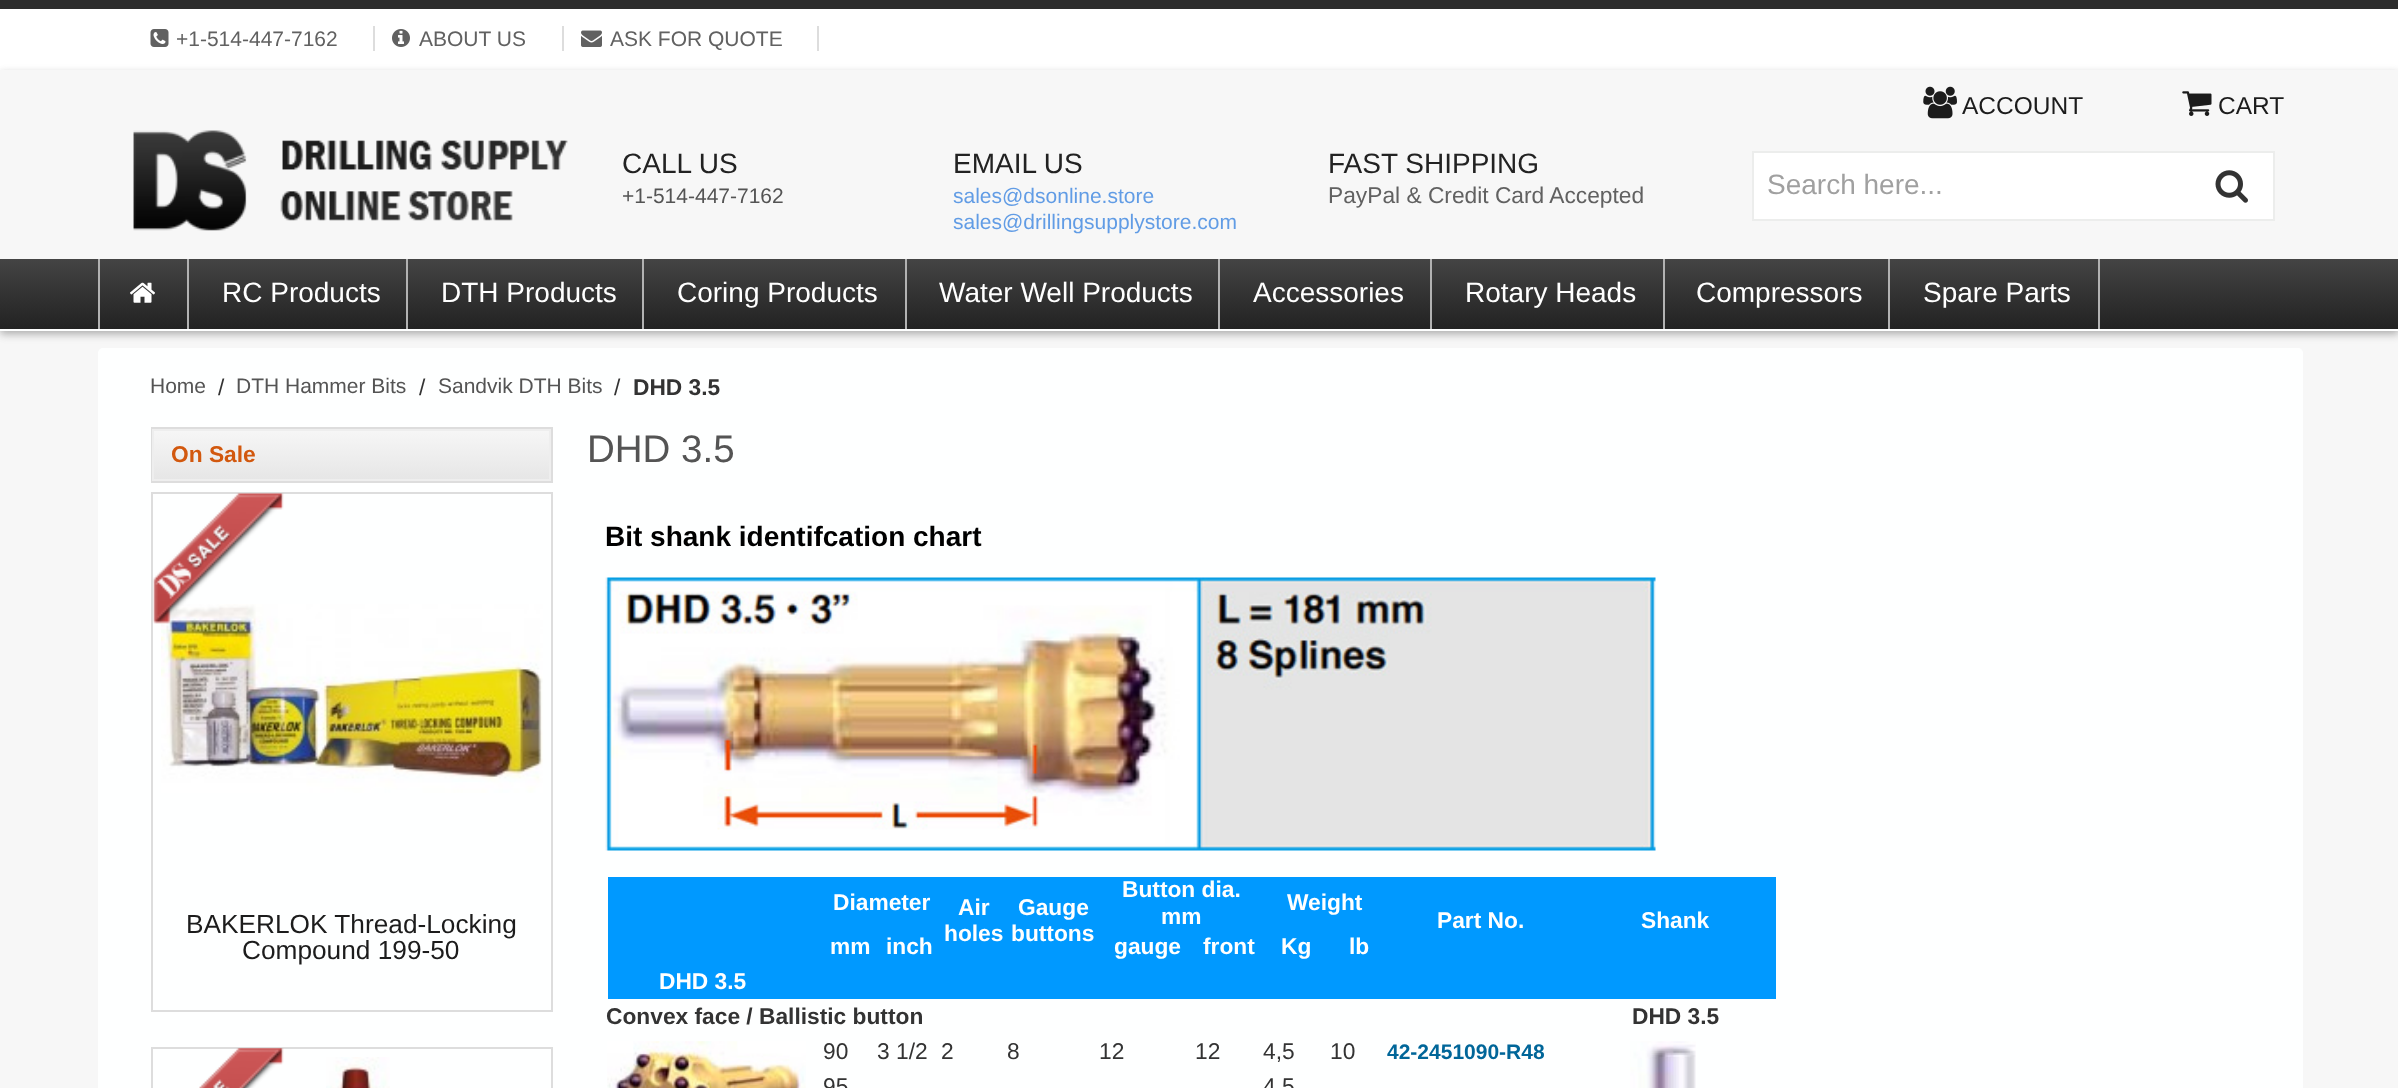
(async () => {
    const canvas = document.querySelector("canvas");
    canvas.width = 2398;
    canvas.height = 1088;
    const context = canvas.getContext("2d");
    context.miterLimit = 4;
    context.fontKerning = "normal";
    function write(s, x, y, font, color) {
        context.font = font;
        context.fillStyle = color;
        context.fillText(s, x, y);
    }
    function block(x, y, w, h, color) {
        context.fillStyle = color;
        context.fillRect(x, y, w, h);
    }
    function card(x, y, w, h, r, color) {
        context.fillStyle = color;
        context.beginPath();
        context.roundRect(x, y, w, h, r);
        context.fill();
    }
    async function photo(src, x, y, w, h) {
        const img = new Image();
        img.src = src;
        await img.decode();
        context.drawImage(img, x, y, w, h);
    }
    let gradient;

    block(0, 0, 2398, 1088, "rgb(247, 247, 247)");
    block(0, 9, 2398, 61, "rgb(255, 255, 255)");
    block(0, 0, 2398, 9, "rgb(45, 45, 45)");
    block(373, 26, 2, 25, "rgb(221, 221, 221)");
    await photo("media/1.png", 150, 29, 19, 18);
    write("+1-514-447-7162", 176, 46, "21px Liberation Sans", "rgb(97, 97, 97)");
    block(562, 26, 2, 25, "rgb(221, 221, 221)");
    await photo("media/2.png", 392, 29, 18, 18);
    write("ABOUT US", 419, 46, "21px Liberation Sans", "rgb(97, 97, 97)");
    block(817, 26, 2, 25, "rgb(221, 221, 221)");
    await photo("media/3.png", 581, 30, 21, 17);
    write("ASK FOR QUOTE", 610, 46, "21px Liberation Sans", "rgb(97, 97, 97)");
    context.save();
    context.beginPath();
    context.moveTo(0, 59);
    context.lineTo(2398, 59);
    context.lineTo(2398, 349);
    context.lineTo(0, 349);
    context.closePath();
    context.moveTo(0, 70);
    context.lineTo(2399, 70);
    context.lineTo(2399, 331);
    context.lineTo(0, 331);
    context.closePath();
    context.clip("evenodd");
    context.fillStyle = "rgb(170, 170, 170)";
    context.filter = "blur(4.5px)";
    context.beginPath();
    context.rect(0, 74, 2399, 260);
    context.fill();
    context.filter = "none";
    context.restore();
    block(0, 329, 2398, 2, "rgb(254, 255, 255)");
    await photo("media/4.png", 1923, 86, 34, 33);
    write("ACCOUNT", 1962, 114, "24.5px Liberation Sans", "rgb(28, 28, 28)");
    await photo("media/5.png", 2182, 91, 30, 25);
    write("CART", 2218, 114, "24.5px Liberation Sans", "rgb(28, 28, 28)");
    await photo("media/6.png", 133, 130, 435, 101);
    write("CALL US", 622, 173, "28px Liberation Sans", "rgb(34, 34, 34)");
    write("+1-514-447-7162", 622, 203, "21px Liberation Sans", "rgb(84, 84, 84)");
    write("EMAIL US", 953, 173, "28px Liberation Sans", "rgb(34, 34, 34)");
    write("sales@dsonline.store", 953, 203, "21px Liberation Sans", "rgb(97, 156, 229)");
    write("sales@drillingsupplystore.com", 953, 229, "21px Liberation Sans", "rgb(97, 156, 229)");
    write("FAST SHIPPING", 1328, 173, "28px Liberation Sans", "rgb(34, 34, 34)");
    write("PayPal & Credit Card Accepted", 1328, 203, "22.75px Liberation Sans", "rgb(97, 97, 97)");
    context.fillStyle = "rgb(255, 255, 255)";
    context.beginPath();
    context.rect(1753, 152, 521, 68);
    context.fill();
    context.strokeStyle = "rgb(236, 237, 236)";
    context.lineWidth = 2;
    context.stroke();
    write("Search here...", 1767, 194, "28px Liberation Sans", "rgb(160, 160, 160)");
    await photo("media/7.png", 2215, 170, 33, 33);
    gradient = context.createLinearGradient(0, 259, 0, 329);
    gradient.addColorStop(0, "rgb(68, 68, 68)");
    gradient.addColorStop(1, "rgb(34, 34, 34)");
    context.fillStyle = gradient;
    context.fillRect(0, 259, 2398, 70);
    block(98, 259, 2, 70, "rgb(178, 178, 178)");
    block(187, 259, 2, 70, "rgb(178, 178, 178)");
    await photo("media/8.png", 130, 282, 25, 21);
    block(406, 259, 2, 70, "rgb(178, 178, 178)");
    write("RC Products", 222, 302, "28px Liberation Sans", "rgb(255, 255, 255)");
    block(642, 259, 2, 70, "rgb(178, 178, 178)");
    write("DTH Products", 441, 302, "28px Liberation Sans", "rgb(255, 255, 255)");
    block(905, 259, 2, 70, "rgb(178, 178, 178)");
    write("Coring Products", 677, 302, "28px Liberation Sans", "rgb(255, 255, 255)");
    block(1218, 259, 2, 70, "rgb(178, 178, 178)");
    write("Water Well Products", 939, 302, "28px Liberation Sans", "rgb(255, 255, 255)");
    block(1430, 259, 2, 70, "rgb(178, 178, 178)");
    write("Accessories", 1253, 302, "28px Liberation Sans", "rgb(255, 255, 255)");
    block(1663, 259, 2, 70, "rgb(178, 178, 178)");
    write("Rotary Heads", 1465, 302, "28px Liberation Sans", "rgb(255, 255, 255)");
    block(1888, 259, 2, 70, "rgb(178, 178, 178)");
    write("Compressors", 1696, 302, "28px Liberation Sans", "rgb(255, 255, 255)");
    block(2098, 259, 2, 70, "rgb(178, 178, 178)");
    write("Spare Parts", 1923, 302, "28px Liberation Sans", "rgb(255, 255, 255)");
    card(98, 348, 2205, 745, 5, "rgb(254, 255, 255)");
    write("Home", 150, 393, "21px Liberation Sans", "rgb(84, 84, 84)");
    write("/", 218, 395, "22.75px Liberation Sans", "rgb(51, 51, 51)");
    write("DTH Hammer Bits", 236, 393, "21px Liberation Sans", "rgb(84, 84, 84)");
    write("/", 419, 395, "22.75px Liberation Sans", "rgb(51, 51, 51)");
    write("Sandvik DTH Bits", 438, 393, "21px Liberation Sans", "rgb(84, 84, 84)");
    write("/", 614, 395, "22.75px Liberation Sans", "rgb(51, 51, 51)");
    write("DHD 3.5", 633, 395, "bold 22.75px Liberation Sans", "rgb(51, 51, 51)");
    context.strokeStyle = "rgb(221, 221, 221)";
    context.strokeRect(152, 428, 400, 54);
    gradient = context.createLinearGradient(154, 431, 154, 480);
    gradient.addColorStop(0, "rgb(246, 246, 246)");
    gradient.addColorStop(1, "rgb(230, 230, 230)");
    context.fillStyle = gradient;
    context.fillRect(154, 431, 395, 48);
    context.strokeStyle = "rgb(238, 238, 238)";
    context.strokeRect(153, 430, 397, 50);
    write("On Sale", 171, 462, "bold 22.75px Liberation Sans", "rgb(210, 88, 14)");
    context.strokeStyle = "rgb(221, 221, 221)";
    context.strokeRect(152, 493, 400, 518);
    await photo("media/10.png", 161, 604, 382, 189);
    await photo("media/9.png", 153, 493, 131, 131);
    write("BAKERLOK Thread-Locking", 186, 933, "26.25px Liberation Sans", "rgb(28, 28, 28)");
    write("Compound 199-50", 242, 959, "26.25px Liberation Sans", "rgb(28, 28, 28)");
    context.strokeRect(152, 1048, 400, 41);
    await photo("media/11.png", 199, 1048, 85, 40);
    await photo("media/12.png", 326, 1057, 64, 31);
    write("DHD 3.5", 587, 462, "38.5px Liberation Sans", "rgb(84, 84, 84)");
    write("Bit shank identifcation chart", 605, 546, "bold 28px Liberation Sans", "rgb(0, 0, 0)");
    await photo("media/13.png", 605, 577, 1051, 274);
    block(608, 877, 215, 87, "rgb(0, 153, 255)");
    block(823, 877, 119, 52, "rgb(0, 153, 255)");
    write("Diameter", 833, 910, "bold 22.75px Liberation Sans", "rgb(255, 255, 255)");
    block(942, 877, 157, 87, "rgb(0, 153, 255)");
    write("Air", 958, 915, "bold 22.75px Liberation Sans", "rgb(255, 255, 255)");
    write("holes", 944, 941, "bold 22.75px Liberation Sans", "rgb(255, 255, 255)");
    write("Gauge", 1018, 915, "bold 22.75px Liberation Sans", "rgb(255, 255, 255)");
    write("buttons", 1011, 941, "bold 22.75px Liberation Sans", "rgb(255, 255, 255)");
    block(1099, 877, 287, 52, "rgb(0, 153, 255)");
    write("Button dia.", 1122, 897, "bold 22.75px Liberation Sans", "rgb(255, 255, 255)");
    write("mm", 1161, 924, "bold 22.75px Liberation Sans", "rgb(255, 255, 255)");
    write("Weight", 1287, 910, "bold 22.75px Liberation Sans", "rgb(255, 255, 255)");
    block(1386, 877, 390, 87, "rgb(0, 153, 255)");
    write("Part No.", 1437, 928, "bold 22.75px Liberation Sans", "rgb(255, 255, 255)");
    write("Shank", 1641, 928, "bold 22.75px Liberation Sans", "rgb(255, 255, 255)");
    block(823, 929, 119, 35, "rgb(0, 153, 255)");
    write("mm", 830, 954, "bold 22.75px Liberation Sans", "rgb(255, 255, 255)");
    write("inch", 886, 954, "bold 22.75px Liberation Sans", "rgb(255, 255, 255)");
    block(1099, 929, 287, 35, "rgb(0, 153, 255)");
    write("gauge", 1114, 954, "bold 22.75px Liberation Sans", "rgb(255, 255, 255)");
    write("front", 1203, 954, "bold 22.75px Liberation Sans", "rgb(255, 255, 255)");
    write("Kg", 1281, 954, "bold 22.75px Liberation Sans", "rgb(255, 255, 255)");
    write("lb", 1349, 954, "bold 22.75px Liberation Sans", "rgb(255, 255, 255)");
    block(608, 964, 1168, 35, "rgb(0, 153, 255)");
    write("DHD 3.5", 659, 989, "bold 22.75px Liberation Sans", "rgb(255, 255, 255)");
    write("Convex face / Ballistic button", 606, 1024, "bold 22.75px Liberation Sans", "rgb(51, 51, 51)");
    write("DHD 3.5", 1632, 1024, "bold 22.75px Liberation Sans", "rgb(51, 51, 51)");
    await photo("media/14.png", 607, 1041, 199, 47);
    write("90", 823, 1059, "22.75px Liberation Sans", "rgb(51, 51, 51)");
    write("3 1/2", 877, 1059, "22.75px Liberation Sans", "rgb(51, 51, 51)");
    write("2", 941, 1059, "22.75px Liberation Sans", "rgb(51, 51, 51)");
    write("8", 1007, 1059, "22.75px Liberation Sans", "rgb(51, 51, 51)");
    write("12", 1099, 1059, "22.75px Liberation Sans", "rgb(51, 51, 51)");
    write("12", 1195, 1059, "22.75px Liberation Sans", "rgb(51, 51, 51)");
    write("4,5", 1263, 1059, "22.75px Liberation Sans", "rgb(51, 51, 51)");
    write("10", 1330, 1059, "22.75px Liberation Sans", "rgb(51, 51, 51)");
    write("42-2451090-R48", 1387, 1059, "bold 21px Liberation Sans", "rgb(0, 102, 153)");
    await photo("media/15.png", 1630, 1041, 66, 47);
    write("95", 823, 1094, "22.75px Liberation Sans", "rgb(51, 51, 51)");
    write("4,5", 1263, 1094, "22.75px Liberation Sans", "rgb(51, 51, 51)");
})();
